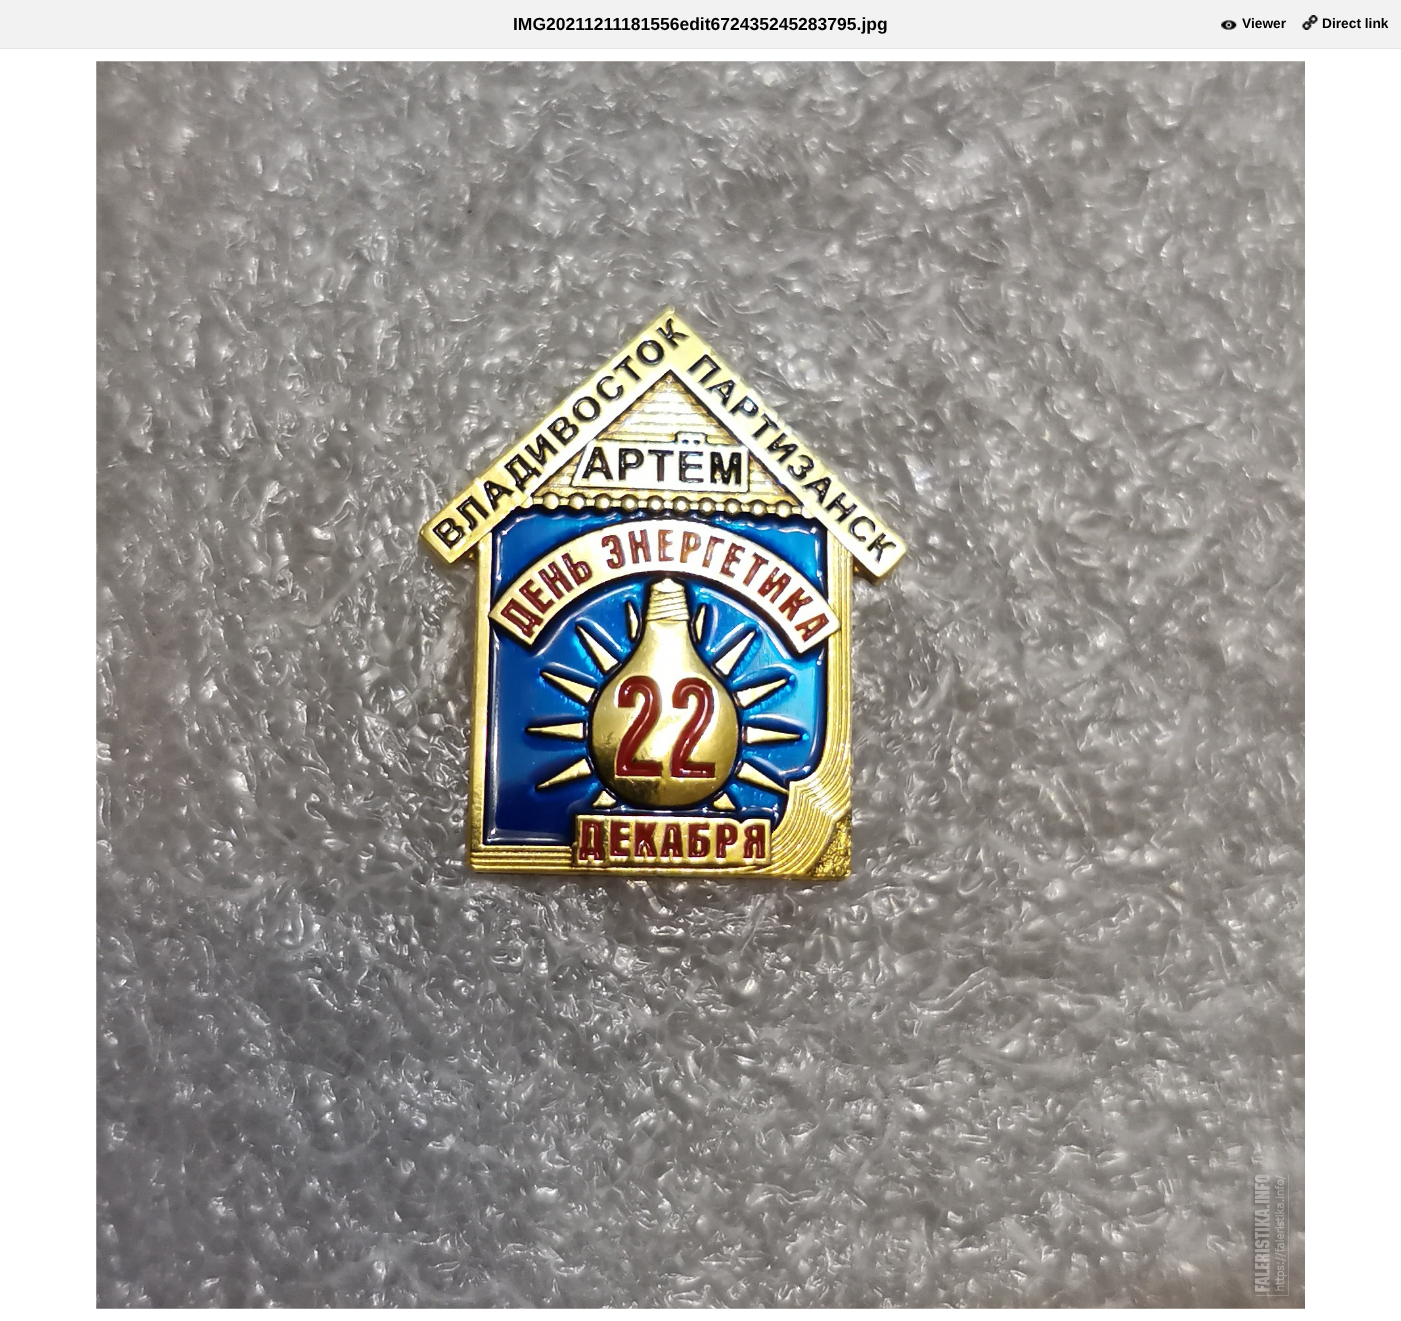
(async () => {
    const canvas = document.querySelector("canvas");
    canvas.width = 1401;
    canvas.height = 1321;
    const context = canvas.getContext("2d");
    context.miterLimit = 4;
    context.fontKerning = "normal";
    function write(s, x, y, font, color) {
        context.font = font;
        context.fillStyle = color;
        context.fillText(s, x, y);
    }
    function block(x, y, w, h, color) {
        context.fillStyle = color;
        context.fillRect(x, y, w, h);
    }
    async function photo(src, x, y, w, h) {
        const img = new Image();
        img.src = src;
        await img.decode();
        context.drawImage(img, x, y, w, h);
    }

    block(0, 0, 1401, 1321, "rgb(255, 255, 255)");
    block(0, 0, 1401, 48, "rgb(242, 242, 242)");
    block(0, 48, 1401, 1, "rgb(229, 229, 229)");
    write("IMG20211211181556edit672435245283795.jpg", 513, 30, "bold 17.5px Liberation Sans", "rgb(0, 0, 0)");
    await photo("media/1.png", 1221, 20, 16, 10);
    write("Viewer", 1242, 28, "bold 13.75px Liberation Sans", "rgb(0, 0, 0)");
    await photo("media/2.png", 1302, 15, 16, 15);
    write("Direct link", 1322, 28, "bold 13.75px Liberation Sans", "rgb(0, 0, 0)");
    await photo("media/3.png", 96, 61, 1209, 1248);
})();
